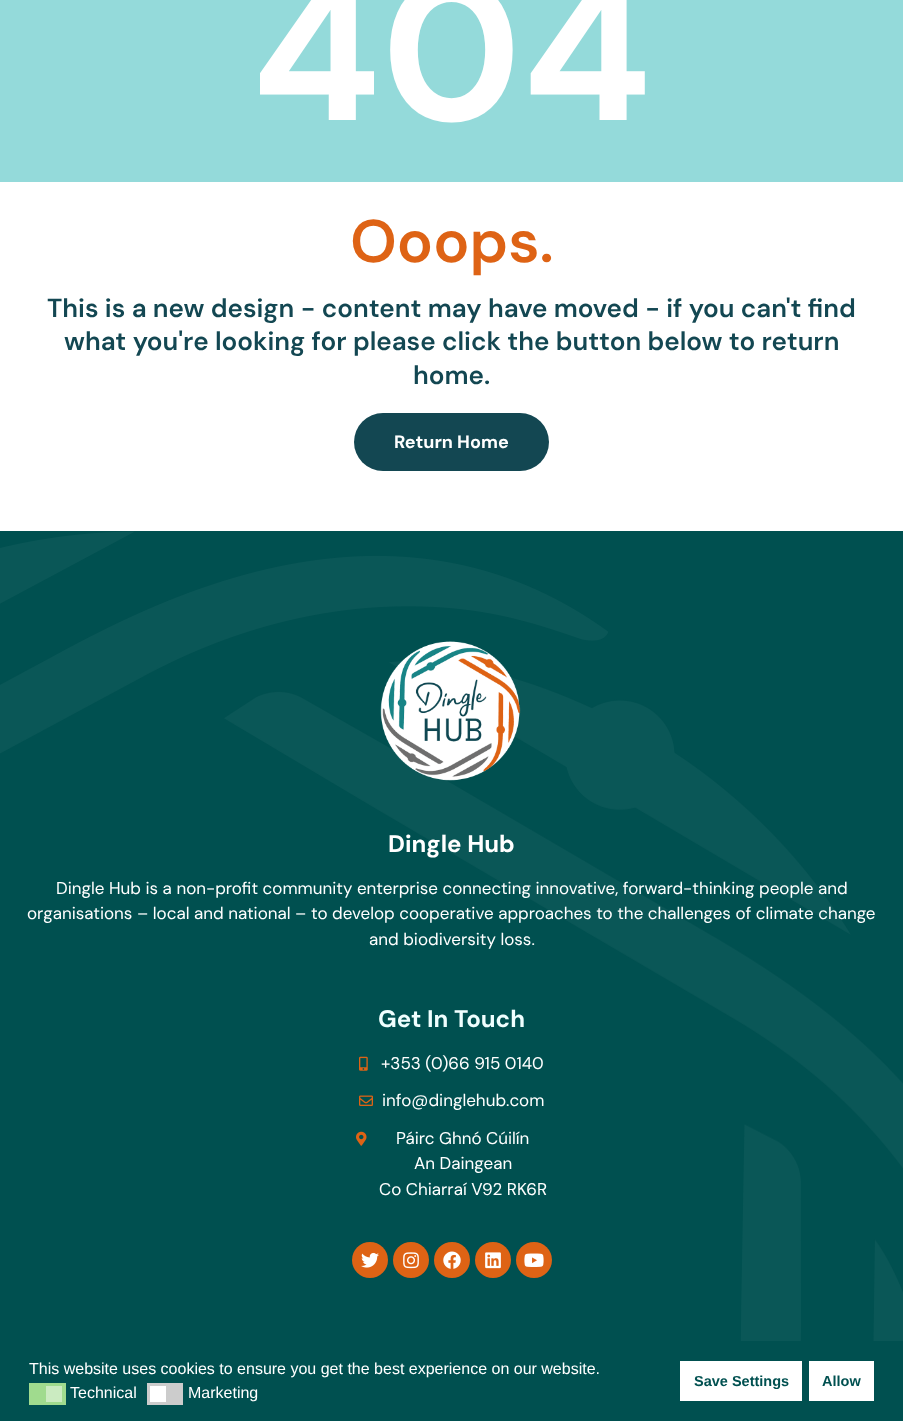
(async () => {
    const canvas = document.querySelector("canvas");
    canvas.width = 903;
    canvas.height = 1421;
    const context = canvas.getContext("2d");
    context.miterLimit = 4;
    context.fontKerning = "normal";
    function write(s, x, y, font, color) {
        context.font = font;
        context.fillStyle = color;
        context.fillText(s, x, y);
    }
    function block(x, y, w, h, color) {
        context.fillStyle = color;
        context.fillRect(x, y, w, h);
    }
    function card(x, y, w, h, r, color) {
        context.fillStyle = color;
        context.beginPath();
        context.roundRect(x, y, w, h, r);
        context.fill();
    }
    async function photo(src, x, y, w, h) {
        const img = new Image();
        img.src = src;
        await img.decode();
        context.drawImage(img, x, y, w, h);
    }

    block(0, 0, 903, 1421, "rgb(255, 255, 255)");
    block(0, 0, 903, 182, "rgb(148, 218, 218)");
    write("404", 251, 120, "bold 200px DM Sans", "rgb(255, 255, 255)");
    write("Ooops.", 350, 262, "600 60px DM Sans", "rgb(222, 99, 21)");
    write("This is a new design - content may have moved - if you can't find", 47, 317, "600 26px DM Sans", "rgb(19, 71, 82)");
    write("what you're looking for please click the button below to return", 64, 350, "600 26px DM Sans", "rgb(19, 71, 82)");
    write("home.", 413, 384, "600 26px DM Sans", "rgb(19, 71, 82)");
    card(354, 413, 195, 58, 29, "rgb(19, 71, 82)");
    write("Return Home", 394, 448, "bold 18px DM Sans", "rgb(255, 255, 255)");
    block(0, 531, 903, 890, "rgb(0, 80, 80)");
    await photo("media/1.png", 0, 531, 903, 810);
    await photo("media/2.png", 380, 641, 141, 140);
    write("Dingle Hub", 388, 852, "bold 24px DM Sans", "rgb(255, 255, 255)");
    write("Dingle Hub is a non-profit community enterprise connecting innovative, forward-thinking people and", 56, 894, "17px DM Sans", "rgb(255, 255, 255)");
    write("organisations – local and national – to develop cooperative approaches to the challenges of climate change", 27, 919, "17px DM Sans", "rgb(255, 255, 255)");
    write("and biodiversity loss.", 369, 945, "17px DM Sans", "rgb(255, 255, 255)");
    write("Get In Touch", 378, 1027, "bold 24px DM Sans", "rgb(239, 255, 255)");
    await photo("media/3.png", 359, 1056, 9, 15);
    write("+353 (0)66 915 0140", 381, 1069, "17px DM Sans", "rgb(255, 255, 255)");
    await photo("media/4.png", 359, 1095, 14, 11);
    write("info@dinglehub.com", 382, 1106, "17px DM Sans", "rgb(255, 255, 255)");
    await photo("media/5.png", 356, 1131, 11, 15);
    write("Páirc Ghnó Cúilín", 396, 1144, "17px DM Sans", "rgb(255, 255, 255)");
    write("An Daingean", 414, 1169, "17px DM Sans", "rgb(255, 255, 255)");
    write("Co Chiarraí V92 RK6R", 379, 1195, "17px DM Sans", "rgb(255, 255, 255)");
    context.fillStyle = "rgb(222, 99, 21)";
    context.beginPath();
    context.arc(370, 1260, 18, 0, Math.PI * 2);
    context.fill();
    await photo("media/6.png", 361, 1252, 18, 16);
    context.beginPath();
    context.arc(411, 1260, 18, 0, Math.PI * 2);
    context.fill();
    await photo("media/7.png", 403, 1252, 16, 17);
    context.beginPath();
    context.arc(452, 1260, 18, 0, Math.PI * 2);
    context.fill();
    await photo("media/8.png", 443, 1251, 18, 18);
    context.beginPath();
    context.arc(493, 1260, 18, 0, Math.PI * 2);
    context.fill();
    await photo("media/9.png", 485, 1252, 16, 17);
    context.beginPath();
    context.arc(534, 1260, 18, 0, Math.PI * 2);
    context.fill();
    await photo("media/10.png", 524, 1253, 20, 14);
    write("This website uses cookies to ensure you get the best experience on our website.", 29, 1374, "16px Liberation Sans", "rgb(255, 255, 255)");
    block(29, 1383, 37, 22, "rgb(160, 219, 142)");
    block(46, 1386, 16, 16, "rgb(203, 235, 193)");
    write("Technical", 70, 1398, "16px Liberation Sans", "rgb(255, 255, 255)");
    block(147, 1383, 36, 22, "rgb(204, 204, 204)");
    block(150, 1386, 16, 16, "rgb(255, 255, 255)");
    write("Marketing", 188, 1398, "16px Liberation Sans", "rgb(255, 255, 255)");
    block(680, 1361, 122, 40, "rgb(255, 255, 255)");
    write("Save Settings", 694, 1386, "bold 14.5px Liberation Sans", "rgb(0, 80, 80)");
    block(809, 1361, 65, 40, "rgb(255, 255, 255)");
    write("Allow", 822, 1386, "bold 14.5px Liberation Sans", "rgb(0, 80, 80)");
})();
